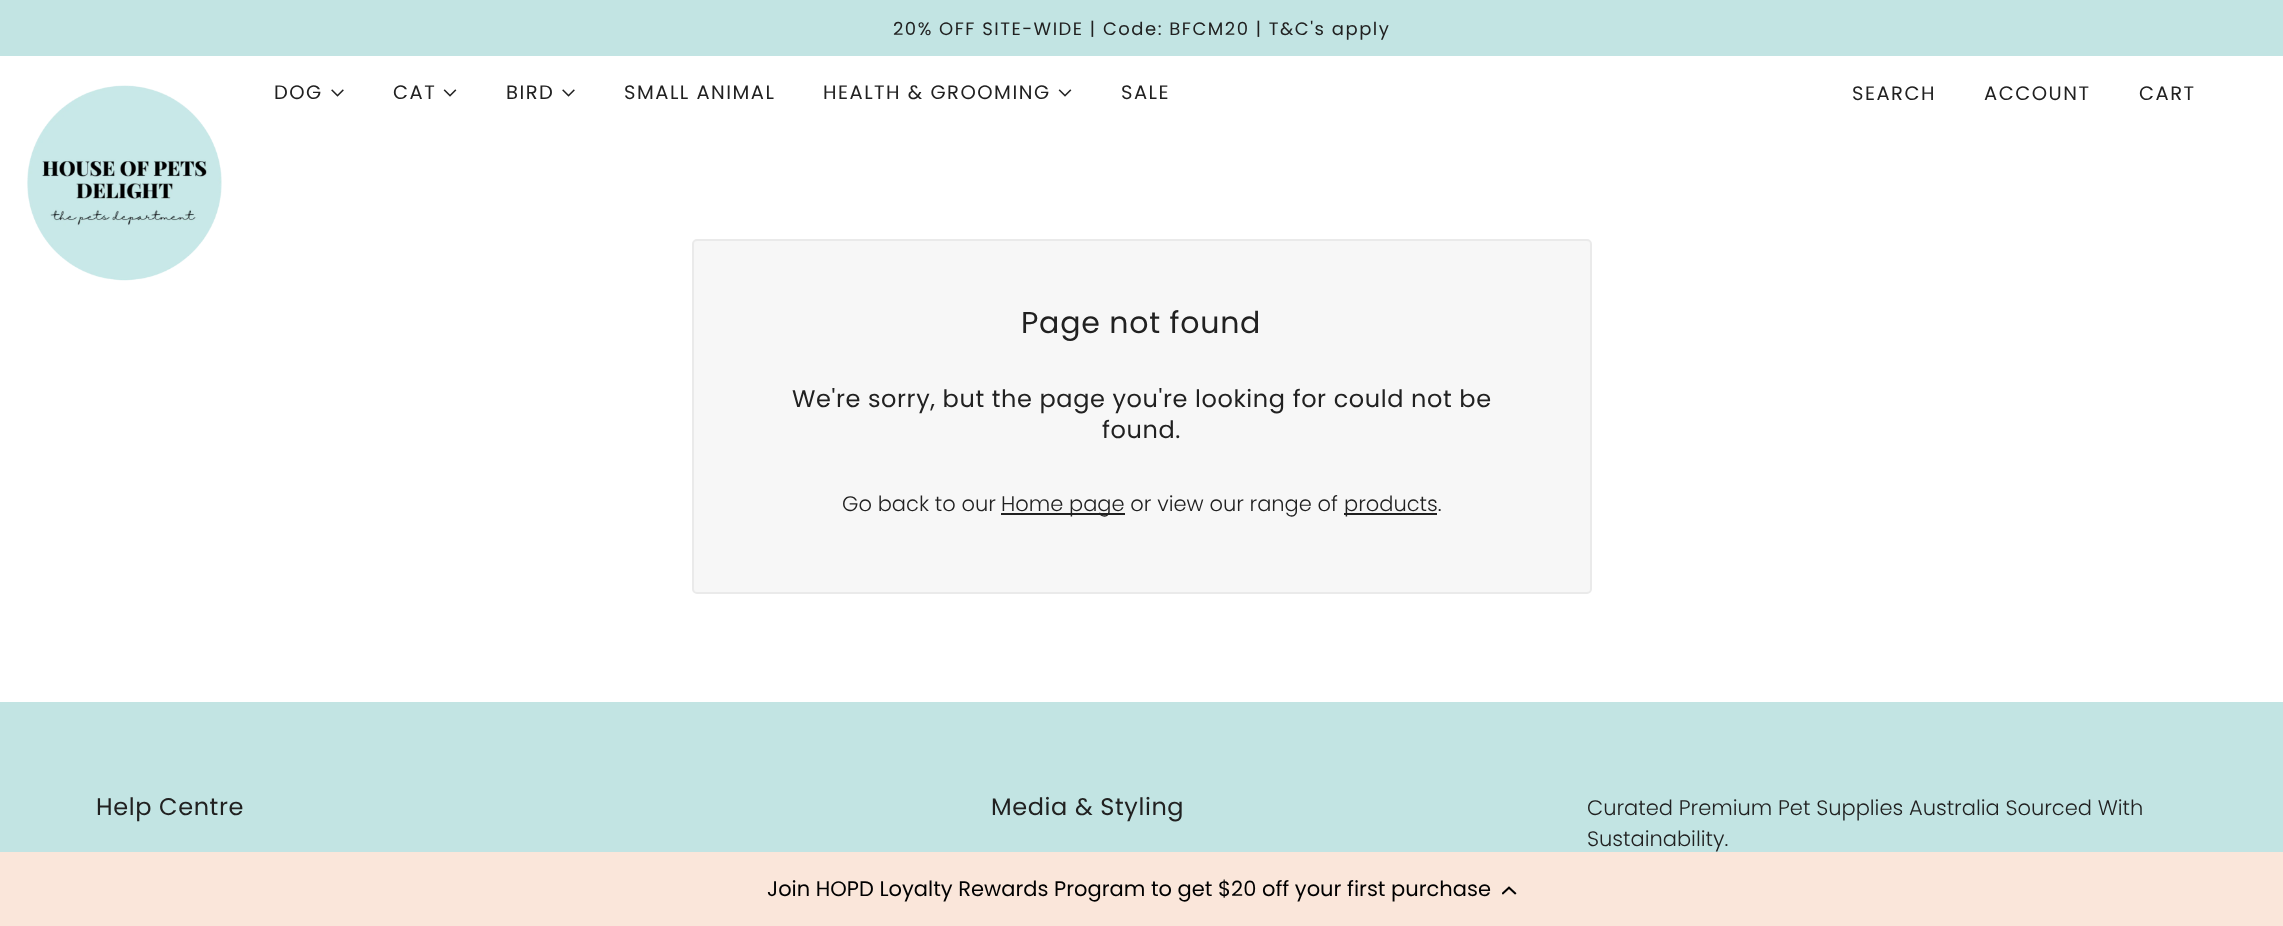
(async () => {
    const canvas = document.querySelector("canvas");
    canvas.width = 2283;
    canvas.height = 926;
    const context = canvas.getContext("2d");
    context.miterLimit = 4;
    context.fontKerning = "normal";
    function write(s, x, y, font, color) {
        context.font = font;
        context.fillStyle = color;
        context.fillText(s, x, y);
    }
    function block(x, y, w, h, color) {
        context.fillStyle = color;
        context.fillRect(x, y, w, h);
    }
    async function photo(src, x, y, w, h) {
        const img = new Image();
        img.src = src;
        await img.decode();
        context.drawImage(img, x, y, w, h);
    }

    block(0, 0, 2283, 926, "rgb(255, 255, 255)");
    block(0, 0, 2283, 56, "rgb(194, 228, 227)");
    context.letterSpacing = "1.5px";
    write("20% OFF SITE-WIDE | Code: BFCM20 | T&C's apply", 893, 35, "18px Poppins", "rgb(33, 33, 33)");
    await photo("media/1.png", 27, 85, 195, 196);
    write("DOG", 274, 99, "19.5px Poppins", "rgb(33, 33, 33)");
    await photo("media/2.png", 331, 89, 13, 8);
    write("CAT", 393, 99, "19.5px Poppins", "rgb(33, 33, 33)");
    await photo("media/3.png", 443, 89, 14, 8);
    write("BIRD", 506, 99, "19.5px Poppins", "rgb(33, 33, 33)");
    await photo("media/2.png", 562, 89, 13, 8);
    write("SMALL ANIMAL", 624, 99, "19.5px Poppins", "rgb(33, 33, 33)");
    write("HEALTH & GROOMING", 823, 99, "19.5px Poppins", "rgb(33, 33, 33)");
    await photo("media/3.png", 1058, 89, 14, 8);
    write("SALE", 1121, 99, "19.5px Poppins", "rgb(33, 33, 33)");
    write("SEARCH", 1852, 100, "19.5px Poppins", "rgb(33, 33, 33)");
    write("ACCOUNT", 1984, 100, "19.5px Poppins", "rgb(33, 33, 33)");
    write("CART", 2139, 100, "19.5px Poppins", "rgb(33, 33, 33)");
    context.fillStyle = "rgb(247, 247, 247)";
    context.beginPath();
    context.roundRect(693, 240, 898, 353, 4);
    context.fill();
    context.strokeStyle = "rgb(234, 234, 234)";
    context.lineWidth = 2;
    context.stroke();
    context.letterSpacing = "0.75px";
    write("Page not found", 1021, 333, "30px Poppins", "rgb(33, 33, 33)");
    context.letterSpacing = "0.6px";
    write("We're sorry, but the page you're looking for could not be", 792, 407, "24px Poppins", "rgb(33, 33, 33)");
    write("found.", 1102, 438, "24px Poppins", "rgb(33, 33, 33)");
    context.letterSpacing = "0px";
    write("Go back to our", 842, 511, "300 21px Poppins", "rgb(33, 33, 33)");
    block(1001, 513, 124, 2, "rgb(33, 33, 33)");
    write("Home page or view our range of", 1001, 511, "300 21px Poppins", "rgb(33, 33, 33)");
    block(1344, 513, 93, 2, "rgb(33, 33, 33)");
    write("products.", 1344, 511, "300 21px Poppins", "rgb(33, 33, 33)");
    block(0, 702, 2283, 150, "rgb(194, 228, 227)");
    context.letterSpacing = "0.6px";
    write("Help Centre", 96, 815, "24px Poppins", "rgb(33, 33, 33)");
    write("Media & Styling", 991, 815, "24px Poppins", "rgb(33, 33, 33)");
    context.letterSpacing = "0px";
    write("Curated Premium Pet Supplies Australia Sourced With", 1587, 815, "300 21px Poppins", "rgb(33, 33, 33)");
    write("Sustainability.", 1587, 846, "300 21px Poppins", "rgb(33, 33, 33)");
    block(0, 852, 2283, 74, "rgb(250, 230, 218)");
    write("Join HOPD Loyalty Rewards Program to get $20 off your first purchase", 767, 896, "21px Poppins", "rgb(0, 0, 0)");
    await photo("media/4.png", 1502, 886, 15, 9);
})();
